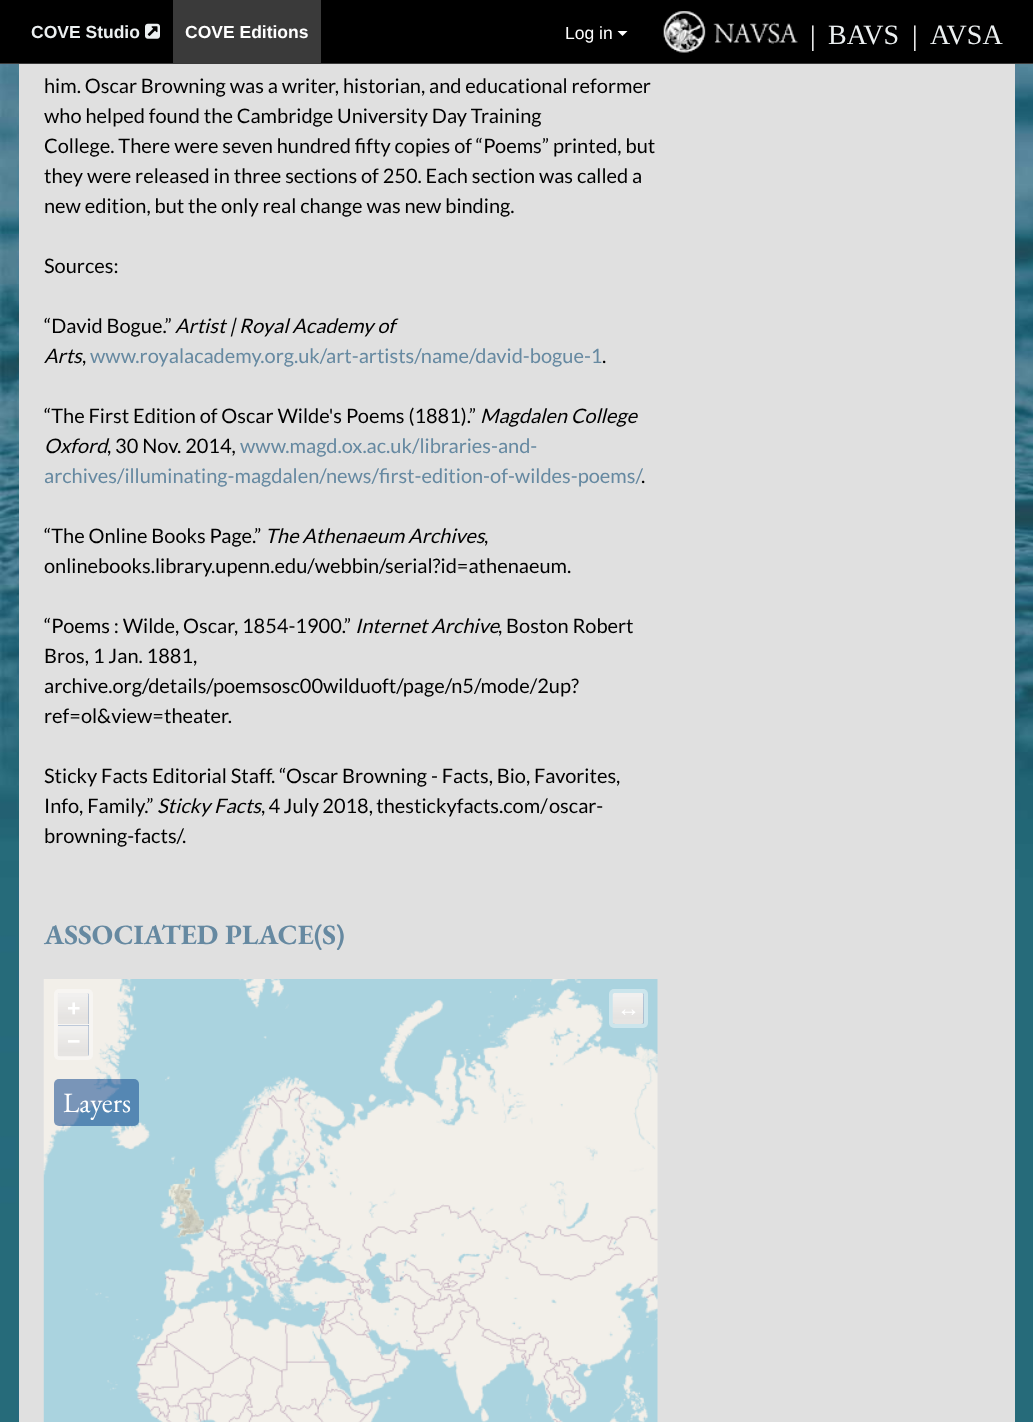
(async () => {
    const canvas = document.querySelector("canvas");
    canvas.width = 1033;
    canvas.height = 1422;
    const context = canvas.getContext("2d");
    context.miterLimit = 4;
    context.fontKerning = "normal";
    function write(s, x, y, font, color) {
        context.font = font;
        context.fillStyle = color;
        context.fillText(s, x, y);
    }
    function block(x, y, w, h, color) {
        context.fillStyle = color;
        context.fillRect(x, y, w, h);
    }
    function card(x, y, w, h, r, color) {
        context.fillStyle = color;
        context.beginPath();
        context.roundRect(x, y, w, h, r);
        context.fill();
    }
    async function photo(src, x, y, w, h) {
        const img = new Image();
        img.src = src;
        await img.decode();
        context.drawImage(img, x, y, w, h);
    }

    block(0, 0, 1033, 1422, "rgb(255, 255, 255)");
    await photo("media/1.png", 1032, 64, 1, 1358);
    await photo("media/2.png", 0, 64, 1033, 1358);
    block(0, 0, 1033, 63, "rgb(0, 0, 0)");
    block(0, 63, 1033, 1, "rgb(58, 58, 58)");
    write("COVE Studio", 31, 38, "bold 17.5px Liberation Sans", "rgb(236, 240, 241)");
    await photo("media/3.png", 145, 23, 15, 16);
    block(173, 0, 148, 63, "rgb(58, 58, 58)");
    write("COVE Editions", 185, 38, "bold 17.5px Liberation Sans", "rgb(255, 255, 255)");
    write("Log in", 565, 39, "17.5px Liberation Sans", "rgb(255, 255, 255)");
    context.beginPath();
    context.moveTo(617.5, 31);
    context.lineTo(627.5, 31);
    context.lineTo(622.5, 36);
    context.closePath();
    context.fill();
    await photo("media/4.png", 663, 11, 135, 42);
    write("|", 810, 45, "28px Liberation Serif", "rgb(255, 255, 255)");
    write("BAVS", 828, 44, "28px Liberation Serif", "rgb(236, 240, 241)");
    write("|", 912, 45, "28px Liberation Serif", "rgb(255, 255, 255)");
    write("AVSA", 930, 44, "28px Liberation Serif", "rgb(236, 240, 241)");
    block(19, 64, 996, 1358, "rgb(224, 224, 224)");
    write("him. Oscar Browning was a writer, historian, and educational reformer", 44, 93, "20px Lato", "rgb(0, 0, 0)");
    write("who helped found the Cambridge University Day Training", 44, 123, "20px Lato", "rgb(0, 0, 0)");
    write("College. There were seven hundred fifty copies of “Poems” printed, but", 44, 153, "20px Lato", "rgb(0, 0, 0)");
    write("they were released in three sections of 250. Each section was called a", 44, 183, "20px Lato", "rgb(0, 0, 0)");
    write("new edition, but the only real change was new binding.", 44, 213, "20px Lato", "rgb(0, 0, 0)");
    write("Sources:", 44, 273, "20px Lato", "rgb(0, 0, 0)");
    write("“David Bogue.”", 44, 333, "20px Lato", "rgb(0, 0, 0)");
    write("Artist | Royal Academy of", 175, 333, "italic 20px Lato", "rgb(0, 0, 0)");
    write("Arts", 44, 363, "italic 20px Lato", "rgb(0, 0, 0)");
    write(",", 82, 363, "20px Lato", "rgb(0, 0, 0)");
    write("www.royalacademy.org.uk/art-artists/name/david-bogue-1", 90, 363, "20px Lato", "rgb(102, 137, 161)");
    write(".", 602, 363, "20px Lato", "rgb(0, 0, 0)");
    write("“The First Edition of Oscar Wilde's Poems (1881).”", 44, 423, "20px Lato", "rgb(0, 0, 0)");
    write("Magdalen College", 480, 423, "italic 20px Lato", "rgb(0, 0, 0)");
    write("Oxford", 44, 453, "italic 20px Lato", "rgb(0, 0, 0)");
    write(", 30 Nov. 2014,", 107, 453, "20px Lato", "rgb(0, 0, 0)");
    write("www.magd.ox.ac.uk/libraries-and-", 240, 453, "20px Lato", "rgb(102, 137, 161)");
    write("archives/illuminating-magdalen/news/first-edition-of-wildes-poems/", 44, 483, "20px Lato", "rgb(102, 137, 161)");
    write(".", 641, 483, "20px Lato", "rgb(0, 0, 0)");
    write("“The Online Books Page.”", 44, 543, "20px Lato", "rgb(0, 0, 0)");
    write("The Athenaeum Archives", 265, 543, "italic 20px Lato", "rgb(0, 0, 0)");
    write(",", 484, 543, "20px Lato", "rgb(0, 0, 0)");
    write("onlinebooks.library.upenn.edu/webbin/", 44, 573, "20px Lato", "rgb(0, 0, 0)");
    write("serial?id=athenaeum.", 385, 573, "20px Lato", "rgb(0, 0, 0)");
    write("“Poems : Wilde, Oscar, 1854-1900.”", 44, 633, "20px Lato", "rgb(0, 0, 0)");
    write("Internet Archive", 355, 633, "italic 20px Lato", "rgb(0, 0, 0)");
    write(", Boston Robert", 498, 633, "20px Lato", "rgb(0, 0, 0)");
    write("Bros, 1 Jan. 1881,", 44, 663, "20px Lato", "rgb(0, 0, 0)");
    write("archive.org/details/poemsosc00wilduoft/page/n5/mode/2up?", 44, 693, "20px Lato", "rgb(0, 0, 0)");
    write("ref=ol&view=theater.", 44, 723, "20px Lato", "rgb(0, 0, 0)");
    write("Sticky Facts Editorial Staff. “Oscar Browning - Facts, Bio, Favorites,", 44, 783, "20px Lato", "rgb(0, 0, 0)");
    write("Info, Family.”", 44, 813, "20px Lato", "rgb(0, 0, 0)");
    write("Sticky Facts", 157, 813, "italic 20px Lato", "rgb(0, 0, 0)");
    context.wordSpacing = "-0.5px";
    write(", 4 July 2018, thestickyfacts.com/", 261, 813, "20px Lato", "rgb(0, 0, 0)");
    context.wordSpacing = "0px";
    write("oscar-", 549, 813, "20px Lato", "rgb(0, 0, 0)");
    write("browning-facts/.", 44, 843, "20px Lato", "rgb(0, 0, 0)");
    write("ASSOCIATED PLACE(S)", 44, 944, "bold 28px EB Garamond", "rgb(102, 137, 161)");
    await photo("media/5.png", 43, 979, 615, 443);
    card(54, 989, 39, 71, 5, "rgb(247, 245, 242)");
    context.fillStyle = "rgb(124, 153, 189)";
    context.beginPath();
    context.roundRect(58, 993, 31, 31, [2.5, 2.5, 0, 0]);
    context.fill();
    await photo("media/6.png", 57, 993, 32, 31);
    write("+", 67, 1016, "bold 23px Liberation Sans", "rgb(255, 255, 255)");
    context.fillStyle = "rgb(124, 153, 189)";
    context.beginPath();
    context.roundRect(58, 1025, 31, 31, [0, 0, 2.5, 2.5]);
    context.fill();
    await photo("media/7.png", 57, 1025, 32, 32);
    write("−", 67, 1049, "bold 23px Liberation Sans", "rgb(255, 255, 255)");
    card(609, 989, 39, 39, 5, "rgb(204, 229, 236)");
    card(613, 993, 31, 31, 2.5, "rgb(102, 145, 186)");
    await photo("media/8.png", 612, 993, 32, 31);
    write("↔", 617, 1016, "bold 23px Liberation Sans", "rgb(255, 255, 255)");
    card(54, 1079, 85, 47, 5, "rgba(0, 60, 136, 0.5)");
    write("Layers", 63, 1112, "28px EB Garamond", "rgb(255, 255, 255)");
})();
